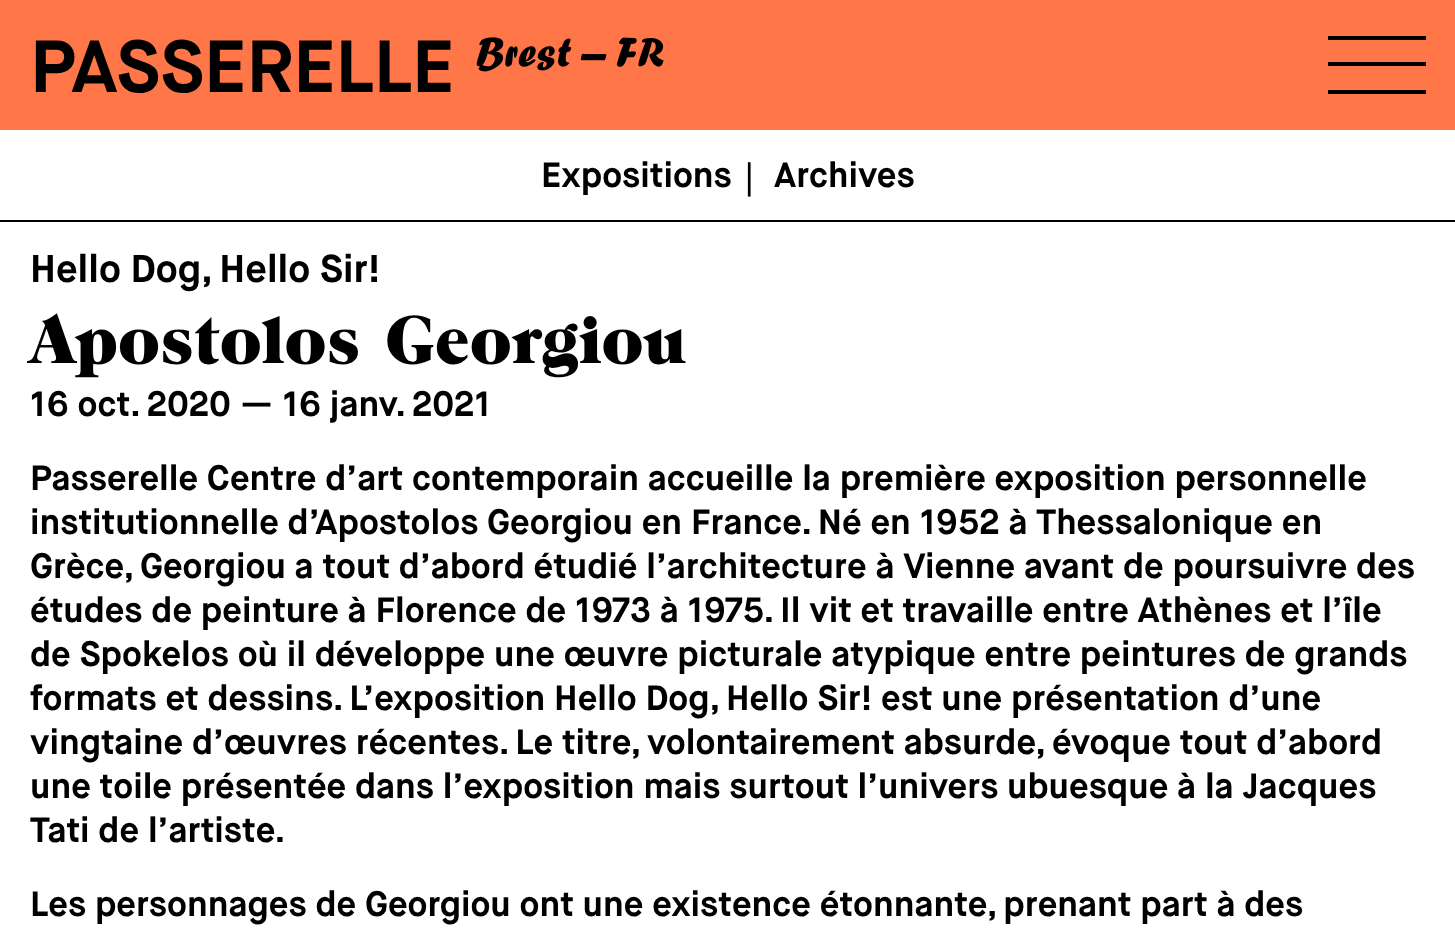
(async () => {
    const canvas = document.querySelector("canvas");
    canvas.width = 1455;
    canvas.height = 950;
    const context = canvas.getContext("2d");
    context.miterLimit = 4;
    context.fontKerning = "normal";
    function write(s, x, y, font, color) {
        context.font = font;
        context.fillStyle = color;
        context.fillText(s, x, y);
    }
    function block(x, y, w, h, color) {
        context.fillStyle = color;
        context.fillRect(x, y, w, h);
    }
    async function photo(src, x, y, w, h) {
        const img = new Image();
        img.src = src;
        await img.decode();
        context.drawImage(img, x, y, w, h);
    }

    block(0, 0, 1455, 950, "rgb(255, 255, 255)");
    block(0, 0, 1455, 130, "rgb(255, 118, 72)");
    write("PASSERELLE", 30, 92, "bold 73.5px Maison Neue", "rgb(0, 0, 0)");
    await photo("media/1.png", 476, 37, 188, 35);
    block(1328, 36, 98, 4, "rgb(0, 0, 0)");
    block(1328, 62, 98, 4, "rgb(0, 0, 0)");
    block(1328, 90, 98, 4, "rgb(0, 0, 0)");
    block(0, 220, 1455, 2, "rgb(0, 0, 0)");
    write("Expositions", 541, 187, "bold 35.2px Maison Neue", "rgb(0, 0, 0)");
    write("|", 745, 187, "bold 32px Maison Neue", "rgb(0, 0, 0)");
    write("Archives", 774, 187, "bold 35.2px Maison Neue", "rgb(0, 0, 0)");
    write("Hello Dog, Hello Sir!", 30, 282, "bold 38.75px Maison Neue", "rgb(0, 0, 0)");
    write("Apostolos Georgiou", 30, 363, "900 67.25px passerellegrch", "rgb(0, 0, 0)");
    write("16 oct. 2020 — 16 janv. 2021", 30, 416, "bold 35.2px Maison Neue", "rgb(0, 0, 0)");
    write("Passerelle Centre d’art contemporain accueille la première exposition personnelle", 30, 490, "bold 35.2px Maison Neue", "rgb(0, 0, 0)");
    write("institutionnelle d’Apostolos Georgiou en France. Né en 1952 à Thessalonique en", 30, 534, "bold 35.2px Maison Neue", "rgb(0, 0, 0)");
    write("Grèce, Georgiou a tout d’abord étudié l’architecture à Vienne avant de poursuivre des", 30, 578, "bold 35.2px Maison Neue", "rgb(0, 0, 0)");
    write("études de peinture à Florence de 1973 à 1975. Il vit et travaille entre Athènes et l’île", 30, 622, "bold 35.2px Maison Neue", "rgb(0, 0, 0)");
    write("de Spokelos où il développe une œuvre picturale atypique entre peintures de grands", 30, 666, "bold 35.2px Maison Neue", "rgb(0, 0, 0)");
    write("formats et dessins. L’exposition Hello Dog, Hello Sir! est une présentation d’une", 30, 710, "bold 35.2px Maison Neue", "rgb(0, 0, 0)");
    write("vingtaine d’œuvres récentes. Le titre, volontairement absurde, évoque tout d’abord", 30, 754, "bold 35.2px Maison Neue", "rgb(0, 0, 0)");
    write("une toile présentée dans l’exposition mais surtout l’univers ubuesque à la Jacques", 30, 798, "bold 35.2px Maison Neue", "rgb(0, 0, 0)");
    write("Tati de l’artiste.", 30, 842, "bold 35.2px Maison Neue", "rgb(0, 0, 0)");
    write("Les personnages de Georgiou ont une existence étonnante, prenant part à des", 30, 916, "bold 35.2px Maison Neue", "rgb(0, 0, 0)");
})();
